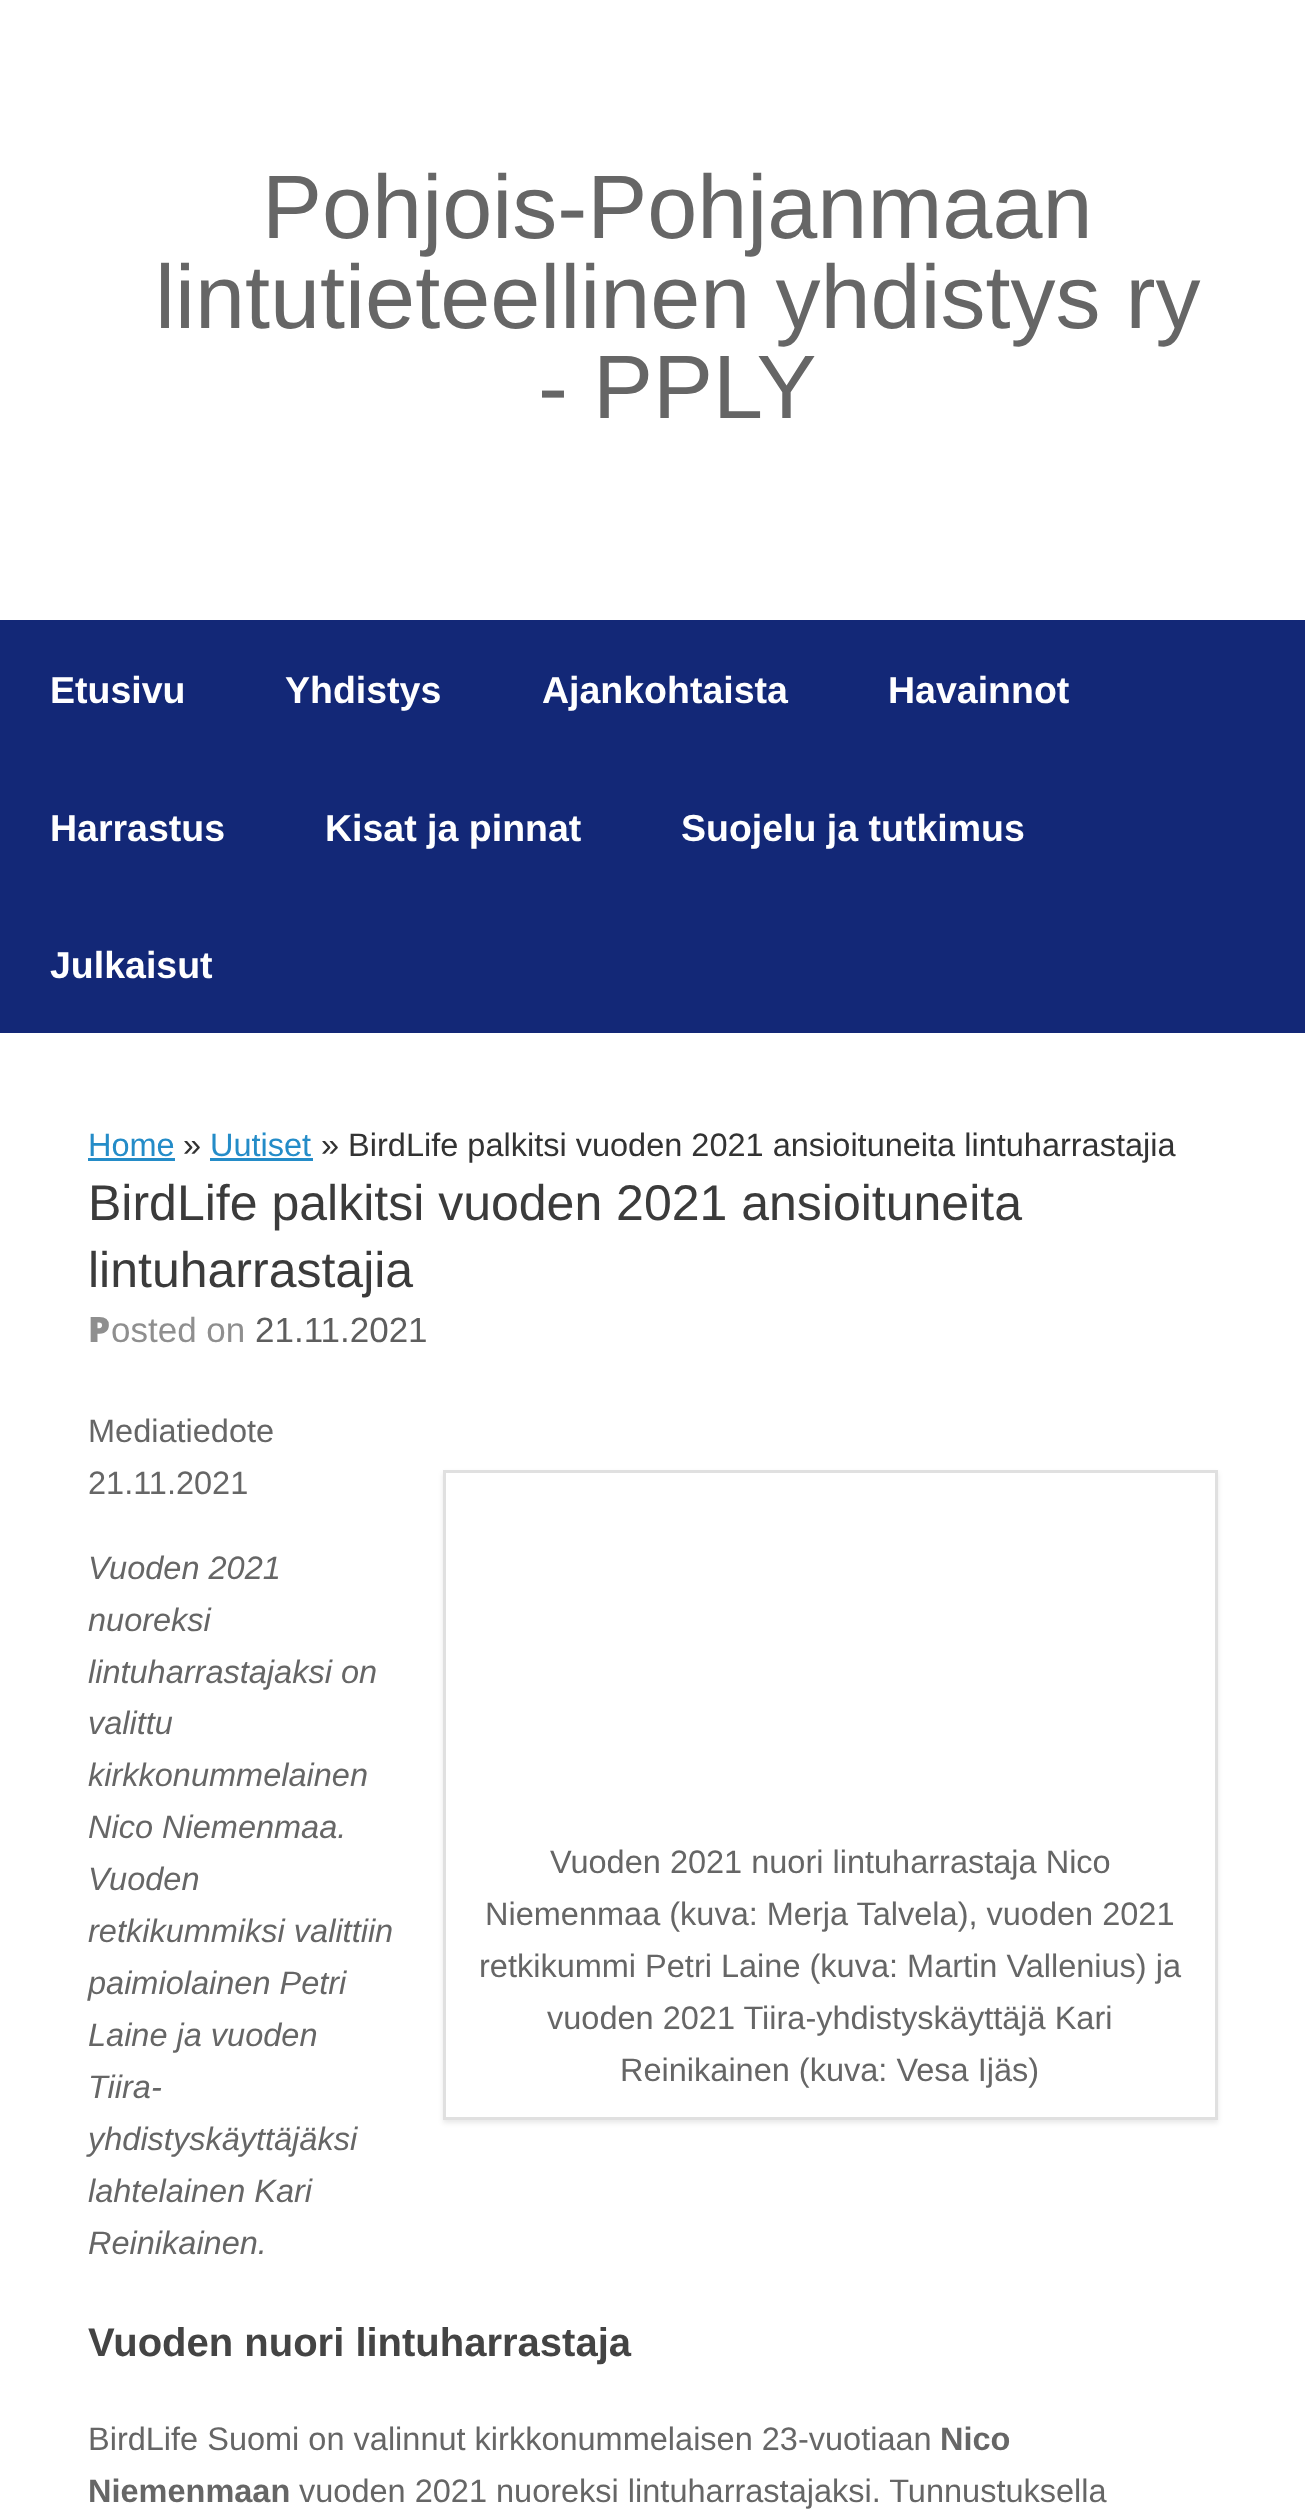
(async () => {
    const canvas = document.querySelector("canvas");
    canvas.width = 1305;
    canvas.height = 2515;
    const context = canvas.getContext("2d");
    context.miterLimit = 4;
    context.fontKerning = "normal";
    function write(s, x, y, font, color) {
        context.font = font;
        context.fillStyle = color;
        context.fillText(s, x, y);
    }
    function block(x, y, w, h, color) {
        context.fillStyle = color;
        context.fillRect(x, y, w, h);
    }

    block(0, 0, 1305, 2515, "rgb(255, 255, 255)");
    write("Pohjois-Pohjanmaan", 262, 238, "90px Liberation Sans", "rgb(102, 102, 102)");
    write("lintutieteellinen yhdistys ry", 155, 328, "90px Liberation Sans", "rgb(102, 102, 102)");
    write("- PPLY", 538, 418, "90px Liberation Sans", "rgb(102, 102, 102)");
    block(0, 620, 1305, 413, "rgb(19, 40, 119)");
    write("Etusivu", 50, 703, "bold 37.5px Liberation Sans", "rgb(255, 255, 255)");
    write("Yhdistys", 285, 703, "bold 37.5px Liberation Sans", "rgb(255, 255, 255)");
    write("Ajankohtaista", 542, 703, "bold 37.5px Liberation Sans", "rgb(255, 255, 255)");
    write("Havainnot", 888, 703, "bold 37.5px Liberation Sans", "rgb(255, 255, 255)");
    write("Harrastus", 50, 841, "bold 37.5px Liberation Sans", "rgb(255, 255, 255)");
    write("Kisat ja pinnat", 325, 841, "bold 37.5px Liberation Sans", "rgb(255, 255, 255)");
    write("Suojelu ja tutkimus", 681, 841, "bold 37.5px Liberation Sans", "rgb(255, 255, 255)");
    write("Julkaisut", 50, 978, "bold 37.5px Liberation Sans", "rgb(255, 255, 255)");
    write("Home", 88, 1156, "32.5px Liberation Sans", "rgb(36, 140, 200)");
    block(88, 1158, 87, 3, "rgb(36, 140, 200)");
    write("»", 183, 1156, "32.5px Liberation Sans", "rgb(51, 51, 51)");
    write("Uutiset", 210, 1156, "32.5px Liberation Sans", "rgb(36, 140, 200)");
    block(210, 1158, 103, 3, "rgb(36, 140, 200)");
    write("» BirdLife palkitsi vuoden 2021 ansioituneita lintuharrastajia", 321, 1156, "32.5px Liberation Sans", "rgb(51, 51, 51)");
    write("BirdLife palkitsi vuoden 2021 ansioituneita", 88, 1220, "50px Liberation Sans", "rgb(59, 59, 59)");
    write("lintuharrastajia", 88, 1287, "50px Liberation Sans", "rgb(59, 59, 59)");
    write("P", 88, 1342, "900 35px Noto Sans", "rgb(143, 143, 143)");
    write("osted on", 111, 1342, "35px Liberation Sans", "rgb(143, 143, 143)");
    write("21.11.2021", 255, 1342, "35px Liberation Sans", "rgb(94, 94, 94)");
    write("Mediatiedote", 88, 1442, "32.5px Liberation Sans", "rgb(102, 102, 102)");
    write("21.11.2021", 88, 1494, "32.5px Liberation Sans", "rgb(102, 102, 102)");
    write("Vuoden 2021", 88, 1579, "italic 32.5px Liberation Sans", "rgb(102, 102, 102)");
    write("nuoreksi", 88, 1631, "italic 32.5px Liberation Sans", "rgb(102, 102, 102)");
    write("lintuharrastajaksi on", 88, 1683, "italic 32.5px Liberation Sans", "rgb(102, 102, 102)");
    write("valittu", 88, 1734, "italic 32.5px Liberation Sans", "rgb(102, 102, 102)");
    write("kirkkonummelainen", 88, 1786, "italic 32.5px Liberation Sans", "rgb(102, 102, 102)");
    write("Nico Niemenmaa.", 88, 1838, "italic 32.5px Liberation Sans", "rgb(102, 102, 102)");
    write("Vuoden", 88, 1890, "italic 32.5px Liberation Sans", "rgb(102, 102, 102)");
    write("retkikummiksi valittiin", 88, 1942, "italic 32.5px Liberation Sans", "rgb(102, 102, 102)");
    write("paimiolainen Petri", 88, 1994, "italic 32.5px Liberation Sans", "rgb(102, 102, 102)");
    write("Laine ja vuoden", 88, 2046, "italic 32.5px Liberation Sans", "rgb(102, 102, 102)");
    write("Tiira-", 88, 2098, "italic 32.5px Liberation Sans", "rgb(102, 102, 102)");
    write("yhdistyskäyttäjäksi", 88, 2150, "italic 32.5px Liberation Sans", "rgb(102, 102, 102)");
    write("lahtelainen Kari", 88, 2202, "italic 32.5px Liberation Sans", "rgb(102, 102, 102)");
    write("Reinikainen.", 88, 2254, "italic 32.5px Liberation Sans", "rgb(102, 102, 102)");
    context.save();
    context.beginPath();
    context.moveTo(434, 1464);
    context.lineTo(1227, 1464);
    context.lineTo(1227, 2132);
    context.lineTo(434, 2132);
    context.closePath();
    context.moveTo(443, 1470);
    context.lineTo(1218, 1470);
    context.lineTo(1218, 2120);
    context.lineTo(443, 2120);
    context.closePath();
    context.clip("evenodd");
    context.fillStyle = "rgba(0, 0, 0, 0.09)";
    context.filter = "blur(2.5px)";
    context.beginPath();
    context.rect(443, 1473, 775, 650);
    context.fill();
    context.filter = "none";
    context.restore();
    context.strokeStyle = "rgb(224, 224, 224)";
    context.lineWidth = 3;
    context.strokeRect(444.5, 1471.5, 772, 647);
    write("Vuoden 2021 nuori lintuharrastaja Nico", 550, 1873, "32.5px Liberation Sans", "rgb(102, 102, 102)");
    write("Niemenmaa (kuva: Merja Talvela), vuoden 2021", 485, 1925, "32.5px Liberation Sans", "rgb(102, 102, 102)");
    write("retkikummi Petri Laine (kuva: Martin Vallenius) ja", 479, 1977, "32.5px Liberation Sans", "rgb(102, 102, 102)");
    write("vuoden 2021 Tiira-yhdistyskäyttäjä Kari", 547, 2029, "32.5px Liberation Sans", "rgb(102, 102, 102)");
    write("Reinikainen (kuva: Vesa Ijäs)", 620, 2081, "32.5px Liberation Sans", "rgb(102, 102, 102)");
    write("Vuoden nuori lintuharrastaja", 88, 2356, "bold 40px Liberation Sans", "rgb(68, 68, 68)");
    write("BirdLife Suomi on valinnut kirkkonummelaisen 23-vuotiaan", 88, 2450, "32.5px Liberation Sans", "rgb(102, 102, 102)");
    write("Nico", 940, 2450, "bold 32.5px Liberation Sans", "rgb(102, 102, 102)");
    write("Niemenmaan", 88, 2502, "bold 32.5px Liberation Sans", "rgb(102, 102, 102)");
    write("vuoden 2021 nuoreksi lintuharrastajaksi. Tunnustuksella", 299, 2502, "32.5px Liberation Sans", "rgb(102, 102, 102)");
})();
